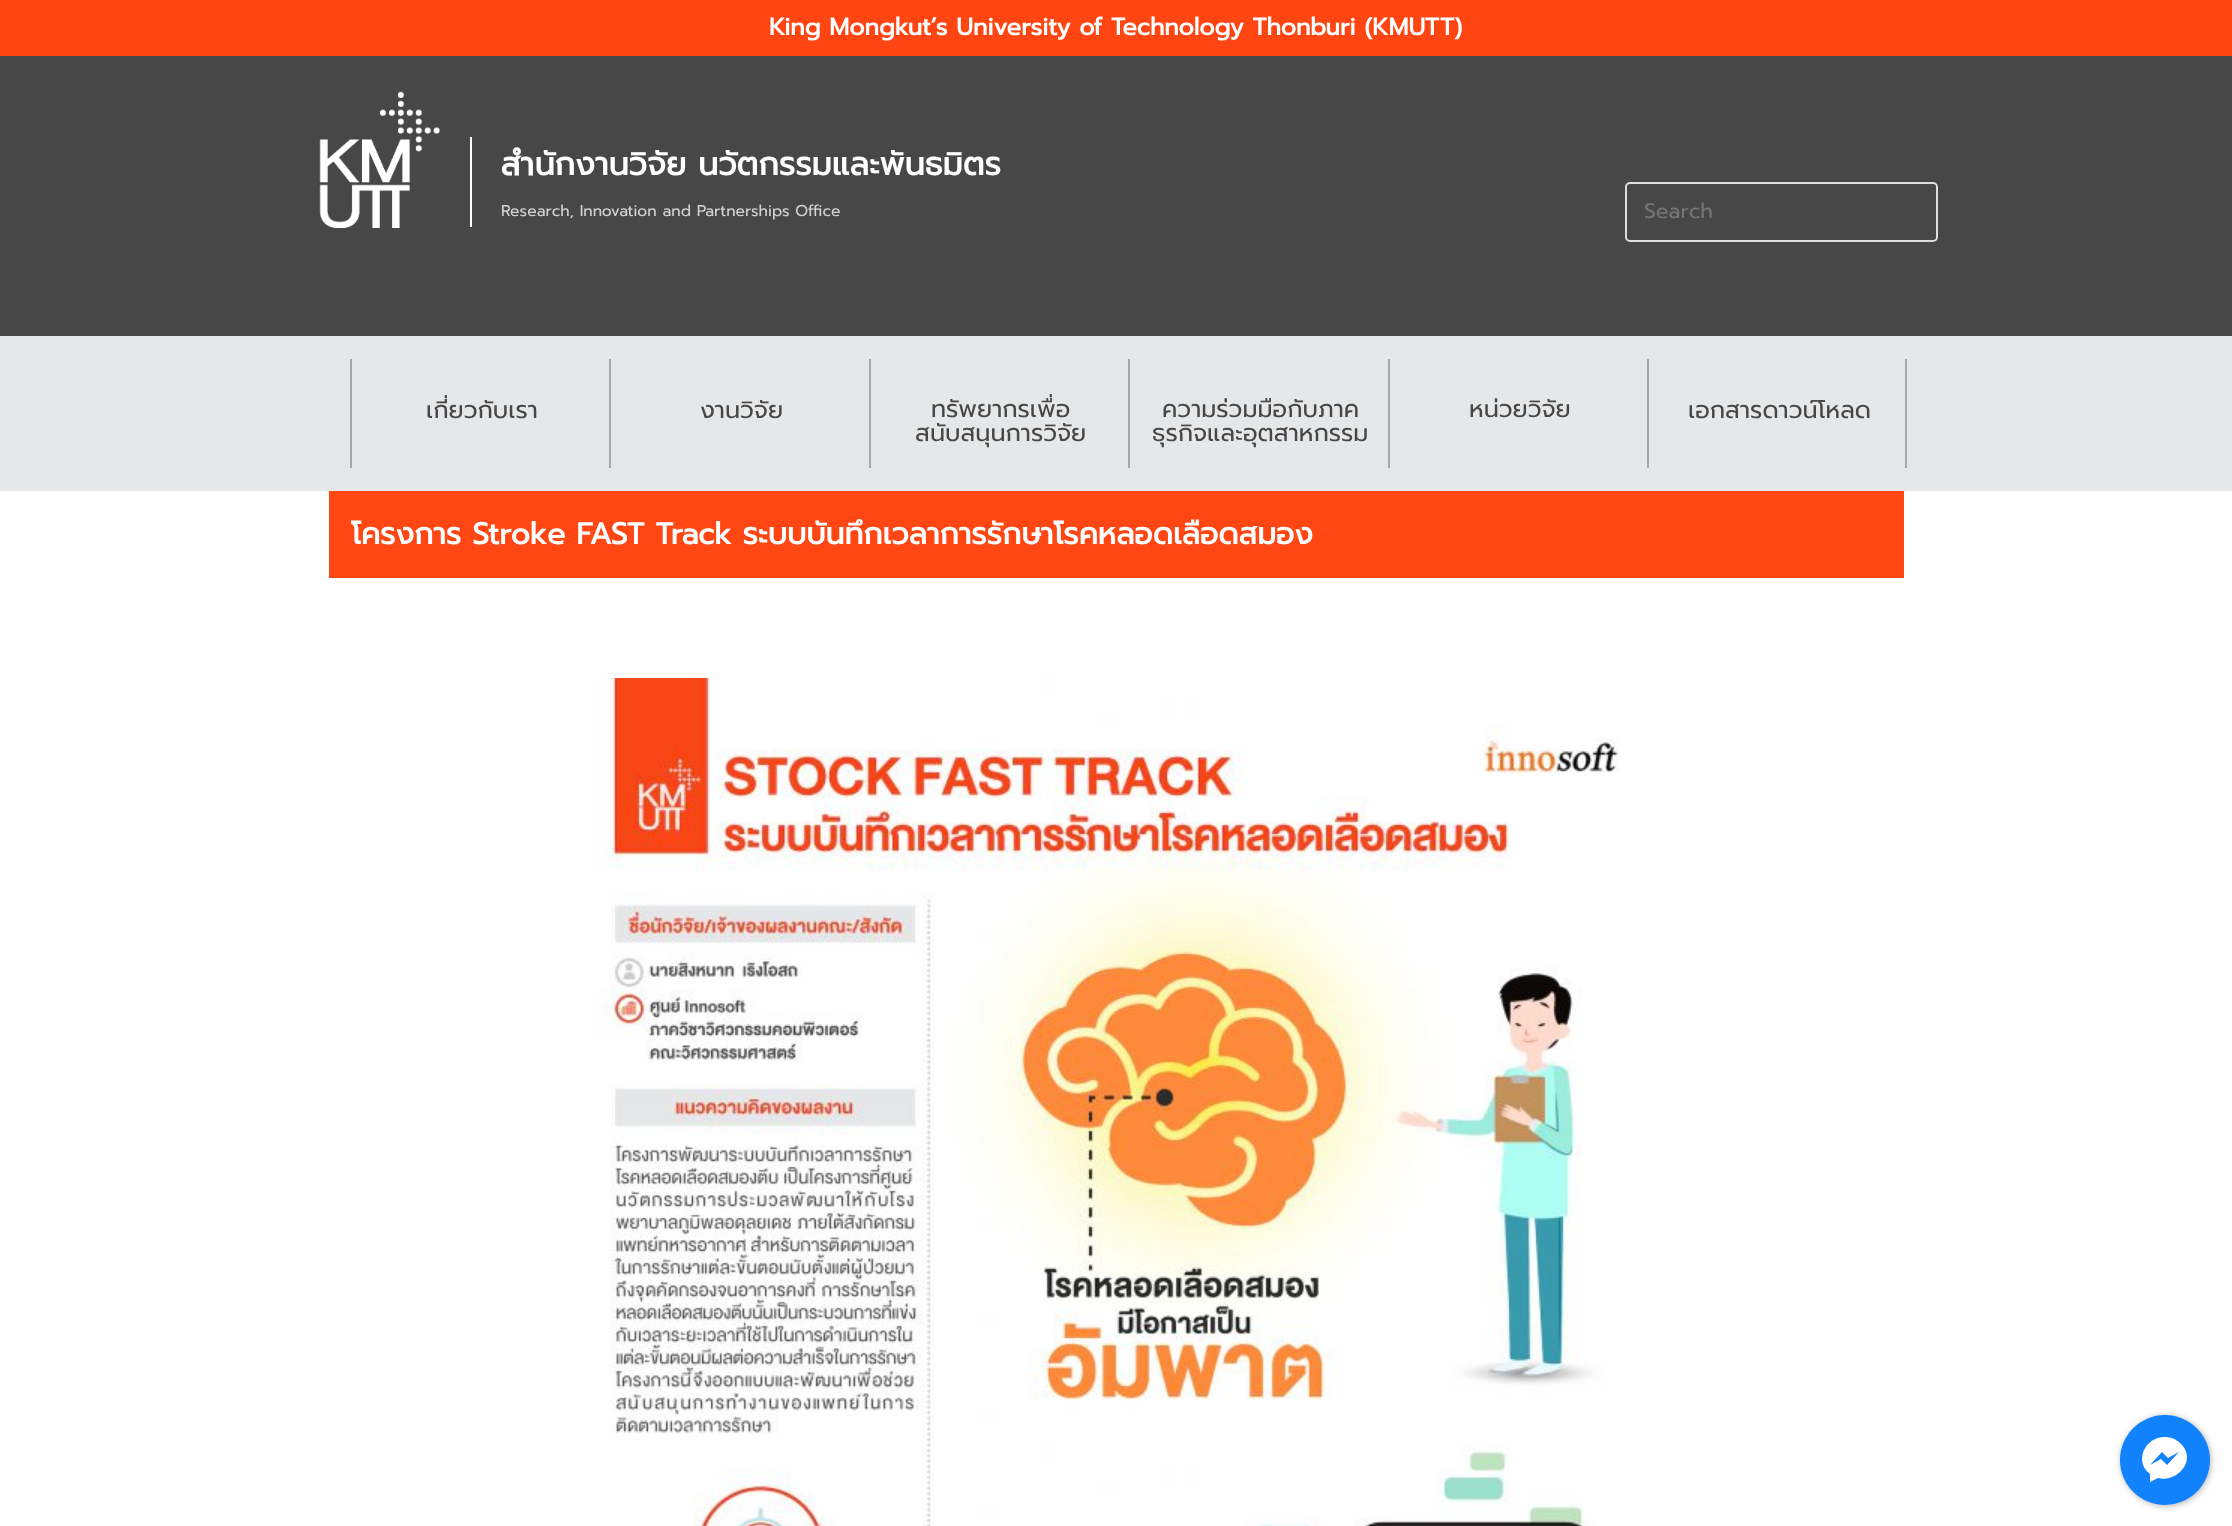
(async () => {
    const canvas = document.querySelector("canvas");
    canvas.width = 2232;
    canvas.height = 1526;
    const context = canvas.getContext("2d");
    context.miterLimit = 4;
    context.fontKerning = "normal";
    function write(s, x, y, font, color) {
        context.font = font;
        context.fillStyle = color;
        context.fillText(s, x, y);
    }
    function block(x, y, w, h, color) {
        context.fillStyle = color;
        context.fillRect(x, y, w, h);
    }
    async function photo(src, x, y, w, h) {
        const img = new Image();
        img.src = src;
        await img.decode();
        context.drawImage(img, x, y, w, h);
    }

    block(0, 0, 2232, 1526, "rgb(255, 255, 255)");
    block(0, 0, 2232, 56, "rgb(255, 70, 18)");
    write("King Mongkut’s University of Technology Thonburi (KMUTT)", 769, 35, "bold 24px Prompt", "rgb(255, 255, 255)");
    block(0, 56, 2232, 280, "rgb(71, 71, 71)");
    await photo("media/1.png", 319, 91, 121, 137);
    block(470, 137, 2, 90, "rgb(255, 255, 255)");
    write("สำนักงานวิจัย นวัตกรรมและพันธมิตร", 501, 175, "bold 32.1px Prompt", "rgb(255, 255, 255)");
    write("Research, Innovation and Partnerships Office", 501, 216, "15.6px Prompt", "rgb(209, 211, 210)");
    context.beginPath();
    context.roundRect(1626, 183, 311, 58, 4);
    context.strokeStyle = "rgb(221, 221, 221)";
    context.lineWidth = 2;
    context.stroke();
    write("Search", 1644, 218, "21px Prompt", "rgb(117, 117, 117)");
    block(0, 336, 2232, 155, "rgb(230, 231, 232)");
    block(350, 359, 2, 109, "rgb(166, 168, 171)");
    write("เกี่ยวกับเรา", 426, 418, "24px Prompt", "rgb(71, 71, 71)");
    block(609, 359, 2, 109, "rgb(166, 168, 171)");
    write("งานวิจัย", 700, 418, "24px Prompt", "rgb(71, 71, 71)");
    block(869, 359, 2, 109, "rgb(166, 168, 171)");
    write("ทรัพยากรเพื่อ", 931, 417, "24px Prompt", "rgb(71, 71, 71)");
    write("สนับสนุนการวิจัย", 915, 441, "24px Prompt", "rgb(71, 71, 71)");
    block(1128, 359, 2, 109, "rgb(166, 168, 171)");
    write("ความร่วมมือกับภาค", 1162, 417, "24px Prompt", "rgb(71, 71, 71)");
    write("ธุรกิจและอุตสาหกรรม", 1152, 441, "24px Prompt", "rgb(71, 71, 71)");
    block(1388, 359, 2, 109, "rgb(166, 168, 171)");
    write("หน่วยวิจัย", 1469, 417, "24px Prompt", "rgb(71, 71, 71)");
    block(1905, 359, 2, 109, "rgb(166, 168, 171)");
    block(1647, 359, 2, 109, "rgb(166, 168, 171)");
    write("เอกสารดาวน์โหลด", 1688, 418, "24px Prompt", "rgb(71, 71, 71)");
    block(329, 491, 1575, 87, "rgb(255, 70, 19)");
    write("โครงการ Stroke FAST Track ระบบบันทึกเวลาการรักษาโรคหลอดเลือดสมอง", 351, 544, "bold 30px Prompt", "rgb(255, 255, 255)");
    await photo("media/2.png", 598, 678, 1021, 848);
    context.fillStyle = "rgba(0, 0, 0, 0.3)";
    context.filter = "blur(3px)";
    context.beginPath();
    context.roundRect(2121, 1416, 90, 90, 45);
    context.fill();
    context.filter = "none";
    context.fillStyle = "rgb(17, 130, 252)";
    context.beginPath();
    context.arc(2165, 1460, 45, 0, Math.PI * 2);
    context.fill();
    context.fillStyle = "rgb(255, 255, 255)";
    context.beginPath();
    context.moveTo(2165, 1437);
    context.bezierCurveTo(2144, 1437, 2134, 1462, 2150, 1474);
    context.lineTo(2150, 1482);
    context.lineTo(2158, 1478);
    context.bezierCurveTo(2178, 1483, 2198, 1459, 2180, 1443);
    context.bezierCurveTo(2176, 1439, 2170, 1437, 2165, 1437);
    context.closePath();
    context.moveTo(2167, 1465);
    context.lineTo(2161, 1459);
    context.lineTo(2150, 1465);
    context.lineTo(2162, 1452);
    context.lineTo(2168, 1458);
    context.lineTo(2179, 1452);
    context.closePath();
    context.fill();
})();
